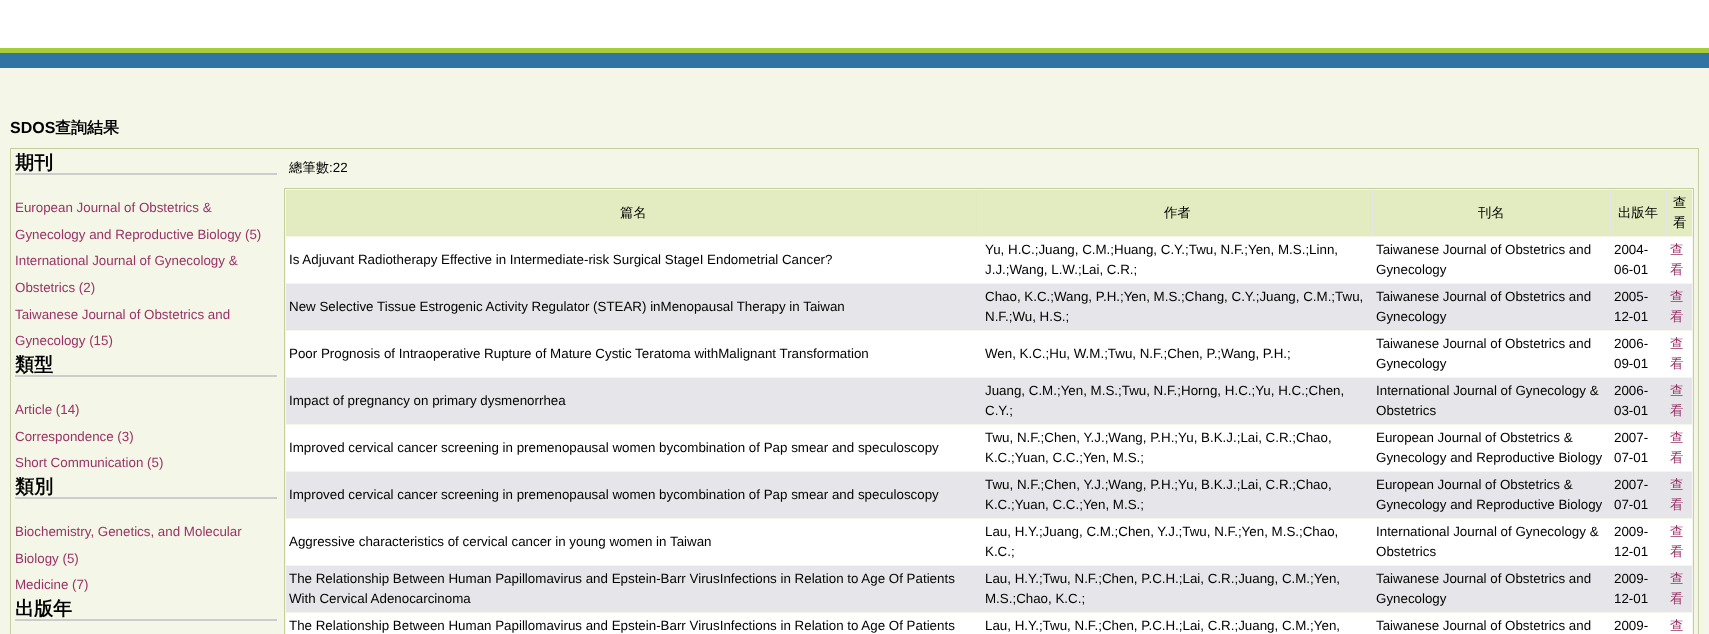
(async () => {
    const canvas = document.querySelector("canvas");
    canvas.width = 1709;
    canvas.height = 634;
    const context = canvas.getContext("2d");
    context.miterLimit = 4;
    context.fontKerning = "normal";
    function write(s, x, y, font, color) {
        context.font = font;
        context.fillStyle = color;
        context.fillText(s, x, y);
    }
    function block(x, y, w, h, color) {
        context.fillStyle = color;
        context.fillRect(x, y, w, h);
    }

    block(0, 0, 1709, 634, "rgb(244, 247, 231)");
    block(0, 0, 1709, 48, "rgb(255, 255, 255)");
    block(0, 48, 1709, 5, "rgb(166, 205, 55)");
    block(0, 53, 1709, 15, "rgb(47, 116, 164)");
    write("SDOS", 10, 133, "bold 16px Liberation Sans", "rgb(0, 0, 0)");
    write("查詢結果", 55, 133, "bold 16px WenQuanYi Zen Hei", "rgb(0, 0, 0)");
    context.strokeStyle = "rgb(197, 207, 155)";
    context.strokeRect(10.5, 148.5, 1688, 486);
    block(15, 173, 262, 2, "rgb(204, 204, 204)");
    write("期刊", 15, 169, "bold 19px WenQuanYi Zen Hei", "rgb(0, 0, 0)");
    write("European Journal of Obstetrics &", 15, 212, "13.35px Liberation Sans", "rgb(153, 51, 102)");
    write("Gynecology and Reproductive Biology (5)", 15, 239, "13.35px Liberation Sans", "rgb(153, 51, 102)");
    write("International Journal of Gynecology &", 15, 265, "13.35px Liberation Sans", "rgb(153, 51, 102)");
    write("Obstetrics (2)", 15, 292, "13.35px Liberation Sans", "rgb(153, 51, 102)");
    write("Taiwanese Journal of Obstetrics and", 15, 319, "13.35px Liberation Sans", "rgb(153, 51, 102)");
    write("Gynecology (15)", 15, 345, "13.35px Liberation Sans", "rgb(153, 51, 102)");
    block(15, 375, 262, 2, "rgb(204, 204, 204)");
    write("類型", 15, 371, "bold 19px WenQuanYi Zen Hei", "rgb(0, 0, 0)");
    write("Article (14)", 15, 414, "13.35px Liberation Sans", "rgb(153, 51, 102)");
    write("Correspondence (3)", 15, 441, "13.35px Liberation Sans", "rgb(153, 51, 102)");
    write("Short Communication (5)", 15, 467, "13.35px Liberation Sans", "rgb(153, 51, 102)");
    block(15, 497, 262, 2, "rgb(204, 204, 204)");
    write("類別", 15, 493, "bold 19px WenQuanYi Zen Hei", "rgb(0, 0, 0)");
    write("Biochemistry, Genetics, and Molecular", 15, 536, "13.35px Liberation Sans", "rgb(153, 51, 102)");
    write("Biology (5)", 15, 563, "13.35px Liberation Sans", "rgb(153, 51, 102)");
    write("Medicine (7)", 15, 589, "13.35px Liberation Sans", "rgb(153, 51, 102)");
    block(15, 619, 262, 2, "rgb(204, 204, 204)");
    write("出版年", 15, 615, "bold 19px WenQuanYi Zen Hei", "rgb(0, 0, 0)");
    write("總筆數", 289, 172, "500 13.35px WenQuanYi Zen Hei", "rgb(0, 0, 0)");
    write(":22", 329, 172, "13.35px Liberation Sans", "rgb(0, 0, 0)");
    context.strokeRect(284.5, 188.5, 1409, 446);
    block(981, 190, 686, 46, "rgb(230, 230, 234)");
    block(286, 190, 695, 46, "rgb(227, 236, 192)");
    write("篇名", 620, 217, "500 13.35px WenQuanYi Zen Hei", "rgb(0, 0, 0)");
    block(982, 190, 390, 46, "rgb(227, 236, 192)");
    write("作者", 1164, 217, "500 13.35px WenQuanYi Zen Hei", "rgb(0, 0, 0)");
    block(1373, 190, 237, 46, "rgb(227, 236, 192)");
    write("刊名", 1478, 217, "500 13.35px WenQuanYi Zen Hei", "rgb(0, 0, 0)");
    block(1611, 190, 55, 46, "rgb(227, 236, 192)");
    write("出版年", 1618, 217, "500 13.35px WenQuanYi Zen Hei", "rgb(0, 0, 0)");
    block(1667, 190, 25, 46, "rgb(227, 236, 192)");
    write("查", 1673, 207, "500 13.35px WenQuanYi Zen Hei", "rgb(0, 0, 0)");
    write("看", 1673, 227, "500 13.35px WenQuanYi Zen Hei", "rgb(0, 0, 0)");
    block(286, 237, 1406, 46, "rgb(255, 255, 255)");
    write("Is Adjuvant Radiotherapy Effective in Intermediate-risk Surgical StageI Endometrial Cancer?", 289, 264, "13.35px Liberation Sans", "rgb(0, 0, 0)");
    write("Yu, H.C.;Juang, C.M.;Huang, C.Y.;Twu, N.F.;Yen, M.S.;Linn,", 985, 254, "13.35px Liberation Sans", "rgb(0, 0, 0)");
    write("J.J.;Wang, L.W.;Lai, C.R.;", 985, 274, "13.35px Liberation Sans", "rgb(0, 0, 0)");
    write("Taiwanese Journal of Obstetrics and", 1376, 254, "13.35px Liberation Sans", "rgb(0, 0, 0)");
    write("Gynecology", 1376, 274, "13.35px Liberation Sans", "rgb(0, 0, 0)");
    write("2004-", 1614, 254, "13.35px Liberation Sans", "rgb(0, 0, 0)");
    write("06-01", 1614, 274, "13.35px Liberation Sans", "rgb(0, 0, 0)");
    write("查", 1670, 254, "500 13.35px WenQuanYi Zen Hei", "rgb(153, 51, 102)");
    write("看", 1670, 274, "500 13.35px WenQuanYi Zen Hei", "rgb(153, 51, 102)");
    block(286, 284, 1406, 46, "rgb(230, 230, 234)");
    write("New Selective Tissue Estrogenic Activity Regulator (STEAR) inMenopausal Therapy in Taiwan", 289, 311, "13.35px Liberation Sans", "rgb(0, 0, 0)");
    write("Chao, K.C.;Wang, P.H.;Yen, M.S.;Chang, C.Y.;Juang, C.M.;Twu,", 985, 301, "13.35px Liberation Sans", "rgb(0, 0, 0)");
    write("N.F.;Wu, H.S.;", 985, 321, "13.35px Liberation Sans", "rgb(0, 0, 0)");
    write("Taiwanese Journal of Obstetrics and", 1376, 301, "13.35px Liberation Sans", "rgb(0, 0, 0)");
    write("Gynecology", 1376, 321, "13.35px Liberation Sans", "rgb(0, 0, 0)");
    write("2005-", 1614, 301, "13.35px Liberation Sans", "rgb(0, 0, 0)");
    write("12-01", 1614, 321, "13.35px Liberation Sans", "rgb(0, 0, 0)");
    write("查", 1670, 301, "500 13.35px WenQuanYi Zen Hei", "rgb(153, 51, 102)");
    write("看", 1670, 321, "500 13.35px WenQuanYi Zen Hei", "rgb(153, 51, 102)");
    block(286, 331, 1406, 46, "rgb(255, 255, 255)");
    write("Poor Prognosis of Intraoperative Rupture of Mature Cystic Teratoma withMalignant Transformation", 289, 358, "13.35px Liberation Sans", "rgb(0, 0, 0)");
    write("Wen, K.C.;Hu, W.M.;Twu, N.F.;Chen, P.;Wang, P.H.;", 985, 358, "13.35px Liberation Sans", "rgb(0, 0, 0)");
    write("Taiwanese Journal of Obstetrics and", 1376, 348, "13.35px Liberation Sans", "rgb(0, 0, 0)");
    write("Gynecology", 1376, 368, "13.35px Liberation Sans", "rgb(0, 0, 0)");
    write("2006-", 1614, 348, "13.35px Liberation Sans", "rgb(0, 0, 0)");
    write("09-01", 1614, 368, "13.35px Liberation Sans", "rgb(0, 0, 0)");
    write("查", 1670, 348, "500 13.35px WenQuanYi Zen Hei", "rgb(153, 51, 102)");
    write("看", 1670, 368, "500 13.35px WenQuanYi Zen Hei", "rgb(153, 51, 102)");
    block(286, 378, 1406, 46, "rgb(230, 230, 234)");
    write("Impact of pregnancy on primary dysmenorrhea", 289, 405, "13.35px Liberation Sans", "rgb(0, 0, 0)");
    write("Juang, C.M.;Yen, M.S.;Twu, N.F.;Horng, H.C.;Yu, H.C.;Chen,", 985, 395, "13.35px Liberation Sans", "rgb(0, 0, 0)");
    write("C.Y.;", 985, 415, "13.35px Liberation Sans", "rgb(0, 0, 0)");
    write("International Journal of Gynecology &", 1376, 395, "13.35px Liberation Sans", "rgb(0, 0, 0)");
    write("Obstetrics", 1376, 415, "13.35px Liberation Sans", "rgb(0, 0, 0)");
    write("2006-", 1614, 395, "13.35px Liberation Sans", "rgb(0, 0, 0)");
    write("03-01", 1614, 415, "13.35px Liberation Sans", "rgb(0, 0, 0)");
    write("查", 1670, 395, "500 13.35px WenQuanYi Zen Hei", "rgb(153, 51, 102)");
    write("看", 1670, 415, "500 13.35px WenQuanYi Zen Hei", "rgb(153, 51, 102)");
    block(286, 425, 1406, 46, "rgb(255, 255, 255)");
    write("Improved cervical cancer screening in premenopausal women bycombination of Pap smear and speculoscopy", 289, 452, "13.35px Liberation Sans", "rgb(0, 0, 0)");
    write("Twu, N.F.;Chen, Y.J.;Wang, P.H.;Yu, B.K.J.;Lai, C.R.;Chao,", 985, 442, "13.35px Liberation Sans", "rgb(0, 0, 0)");
    write("K.C.;Yuan, C.C.;Yen, M.S.;", 985, 462, "13.35px Liberation Sans", "rgb(0, 0, 0)");
    write("European Journal of Obstetrics &", 1376, 442, "13.35px Liberation Sans", "rgb(0, 0, 0)");
    write("Gynecology and Reproductive Biology", 1376, 462, "13.35px Liberation Sans", "rgb(0, 0, 0)");
    write("2007-", 1614, 442, "13.35px Liberation Sans", "rgb(0, 0, 0)");
    write("07-01", 1614, 462, "13.35px Liberation Sans", "rgb(0, 0, 0)");
    write("查", 1670, 442, "500 13.35px WenQuanYi Zen Hei", "rgb(153, 51, 102)");
    write("看", 1670, 462, "500 13.35px WenQuanYi Zen Hei", "rgb(153, 51, 102)");
    block(286, 472, 1406, 46, "rgb(230, 230, 234)");
    write("Improved cervical cancer screening in premenopausal women bycombination of Pap smear and speculoscopy", 289, 499, "13.35px Liberation Sans", "rgb(0, 0, 0)");
    write("Twu, N.F.;Chen, Y.J.;Wang, P.H.;Yu, B.K.J.;Lai, C.R.;Chao,", 985, 489, "13.35px Liberation Sans", "rgb(0, 0, 0)");
    write("K.C.;Yuan, C.C.;Yen, M.S.;", 985, 509, "13.35px Liberation Sans", "rgb(0, 0, 0)");
    write("European Journal of Obstetrics &", 1376, 489, "13.35px Liberation Sans", "rgb(0, 0, 0)");
    write("Gynecology and Reproductive Biology", 1376, 509, "13.35px Liberation Sans", "rgb(0, 0, 0)");
    write("2007-", 1614, 489, "13.35px Liberation Sans", "rgb(0, 0, 0)");
    write("07-01", 1614, 509, "13.35px Liberation Sans", "rgb(0, 0, 0)");
    write("查", 1670, 489, "500 13.35px WenQuanYi Zen Hei", "rgb(153, 51, 102)");
    write("看", 1670, 509, "500 13.35px WenQuanYi Zen Hei", "rgb(153, 51, 102)");
    block(286, 519, 1406, 46, "rgb(255, 255, 255)");
    write("Aggressive characteristics of cervical cancer in young women in Taiwan", 289, 546, "13.35px Liberation Sans", "rgb(0, 0, 0)");
    write("Lau, H.Y.;Juang, C.M.;Chen, Y.J.;Twu, N.F.;Yen, M.S.;Chao,", 985, 536, "13.35px Liberation Sans", "rgb(0, 0, 0)");
    write("K.C.;", 985, 556, "13.35px Liberation Sans", "rgb(0, 0, 0)");
    write("International Journal of Gynecology &", 1376, 536, "13.35px Liberation Sans", "rgb(0, 0, 0)");
    write("Obstetrics", 1376, 556, "13.35px Liberation Sans", "rgb(0, 0, 0)");
    write("2009-", 1614, 536, "13.35px Liberation Sans", "rgb(0, 0, 0)");
    write("12-01", 1614, 556, "13.35px Liberation Sans", "rgb(0, 0, 0)");
    write("查", 1670, 536, "500 13.35px WenQuanYi Zen Hei", "rgb(153, 51, 102)");
    write("看", 1670, 556, "500 13.35px WenQuanYi Zen Hei", "rgb(153, 51, 102)");
    block(286, 566, 1406, 46, "rgb(230, 230, 234)");
    write("The Relationship Between Human Papillomavirus and Epstein-Barr VirusInfections in Relation to Age Of Patients", 289, 583, "13.35px Liberation Sans", "rgb(0, 0, 0)");
    write("With Cervical Adenocarcinoma", 289, 603, "13.35px Liberation Sans", "rgb(0, 0, 0)");
    write("Lau, H.Y.;Twu, N.F.;Chen, P.C.H.;Lai, C.R.;Juang, C.M.;Yen,", 985, 583, "13.35px Liberation Sans", "rgb(0, 0, 0)");
    write("M.S.;Chao, K.C.;", 985, 603, "13.35px Liberation Sans", "rgb(0, 0, 0)");
    write("Taiwanese Journal of Obstetrics and", 1376, 583, "13.35px Liberation Sans", "rgb(0, 0, 0)");
    write("Gynecology", 1376, 603, "13.35px Liberation Sans", "rgb(0, 0, 0)");
    write("2009-", 1614, 583, "13.35px Liberation Sans", "rgb(0, 0, 0)");
    write("12-01", 1614, 603, "13.35px Liberation Sans", "rgb(0, 0, 0)");
    write("查", 1670, 583, "500 13.35px WenQuanYi Zen Hei", "rgb(153, 51, 102)");
    write("看", 1670, 603, "500 13.35px WenQuanYi Zen Hei", "rgb(153, 51, 102)");
    block(286, 613, 1406, 21, "rgb(255, 255, 255)");
    write("The Relationship Between Human Papillomavirus and Epstein-Barr VirusInfections in Relation to Age Of Patients", 289, 630, "13.35px Liberation Sans", "rgb(0, 0, 0)");
    write("Lau, H.Y.;Twu, N.F.;Chen, P.C.H.;Lai, C.R.;Juang, C.M.;Yen,", 985, 630, "13.35px Liberation Sans", "rgb(0, 0, 0)");
    write("Taiwanese Journal of Obstetrics and", 1376, 630, "13.35px Liberation Sans", "rgb(0, 0, 0)");
    write("2009-", 1614, 630, "13.35px Liberation Sans", "rgb(0, 0, 0)");
    write("查", 1670, 630, "500 13.35px WenQuanYi Zen Hei", "rgb(153, 51, 102)");
})();
